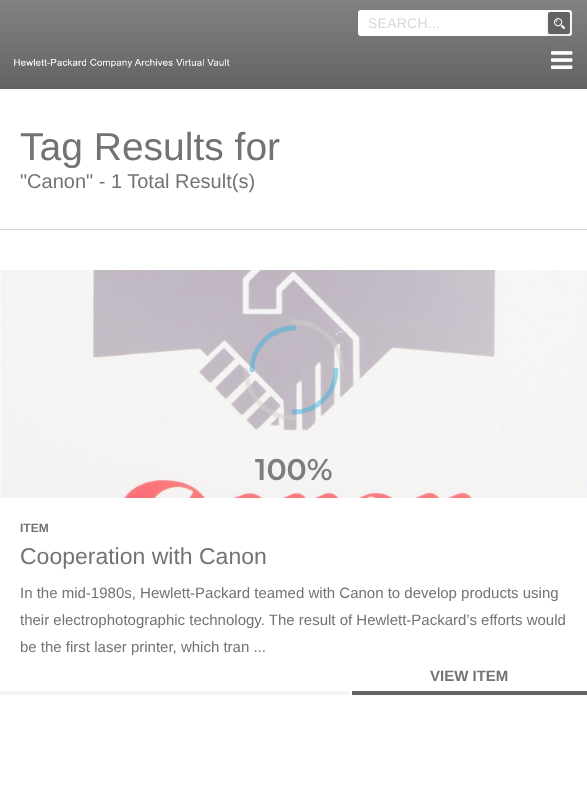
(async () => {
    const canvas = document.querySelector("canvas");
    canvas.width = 587;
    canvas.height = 799;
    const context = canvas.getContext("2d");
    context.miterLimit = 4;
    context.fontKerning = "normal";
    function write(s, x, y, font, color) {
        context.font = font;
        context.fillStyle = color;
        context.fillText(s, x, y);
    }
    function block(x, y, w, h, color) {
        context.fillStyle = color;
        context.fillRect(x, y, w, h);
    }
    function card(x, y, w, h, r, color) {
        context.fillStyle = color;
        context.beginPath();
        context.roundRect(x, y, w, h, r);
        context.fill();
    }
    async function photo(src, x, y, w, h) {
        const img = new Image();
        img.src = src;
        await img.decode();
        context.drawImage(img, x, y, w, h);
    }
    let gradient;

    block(0, 0, 587, 799, "rgb(255, 255, 255)");
    gradient = context.createLinearGradient(294, 89, 294, 0);
    gradient.addColorStop(0, "rgb(99, 99, 99)");
    gradient.addColorStop(1, "rgb(130, 130, 130)");
    context.fillStyle = gradient;
    context.fillRect(0, 0, 587, 89);
    card(358, 10, 214, 26, 3, "rgb(255, 255, 255)");
    context.letterSpacing = "0.25px";
    write("SEARCH...", 368, 28, "14px Liberation Sans", "rgb(215, 215, 215)");
    context.fillStyle = "rgba(99, 99, 99, 0.2)";
    context.filter = "blur(2px)";
    context.beginPath();
    context.roundRect(548, 14, 22, 22, 2);
    context.fill();
    context.filter = "none";
    card(548, 12, 22, 22, 2, "rgb(99, 99, 99)");
    await photo("media/1.png", 554, 18, 11, 11);
    await photo("media/2.png", 14, 58, 216, 10);
    await photo("media/3.png", 551, 51, 22, 18);
    context.letterSpacing = "0px";
    write("Tag Results for", 20, 160, "39px Liberation Sans", "rgb(115, 115, 115)");
    write("\"Canon\" - 1 Total Result(s)", 20, 188, "20px Liberation Sans", "rgb(115, 115, 115)");
    block(0, 229, 587, 1, "rgb(211, 211, 211)");
    await photo("media/4.png", 0, 270, 587, 228);
    write("ITEM", 20, 532, "bold 12px Liberation Sans", "rgb(115, 115, 115)");
    write("Cooperation with Canon", 20, 564, "23px Liberation Sans", "rgb(115, 115, 115)");
    write("In the mid-1980s, Hewlett-Packard teamed with Canon to develop products using", 20, 598, "15px Liberation Sans", "rgb(115, 115, 115)");
    write("their electrophotographic technology. The result of Hewlett-Packard’s efforts would", 20, 625, "15px Liberation Sans", "rgb(115, 115, 115)");
    write("be the first laser printer, which tran ...", 20, 652, "15px Liberation Sans", "rgb(115, 115, 115)");
    block(352, 691, 235, 4, "rgb(99, 99, 99)");
    write("VIEW ITEM", 430, 681, "bold 15px Liberation Sans", "rgb(115, 115, 115)");
    block(0, 691, 350, 4, "rgb(243, 243, 243)");
    context.beginPath();
    context.moveTo(294, 322);
    context.bezierCurveTo(320, 322, 342, 344, 342, 370);
    context.moveTo(294, 418);
    context.bezierCurveTo(268, 418, 246, 396, 246, 370);
    context.strokeStyle = "rgba(209, 209, 202, 0.49)";
    context.lineWidth = 4.8;
    context.lineCap = "round";
    context.stroke();
    context.beginPath();
    context.moveTo(336, 370);
    context.bezierCurveTo(336, 393, 317, 412, 294, 412);
    context.moveTo(252, 370);
    context.bezierCurveTo(252, 347, 271, 328, 294, 328);
    context.strokeStyle = "rgba(57, 178, 223, 0.49)";
    context.stroke();
    write("100%", 255, 480, "600 30px Montserrat", "rgb(126, 125, 125)");
})();
